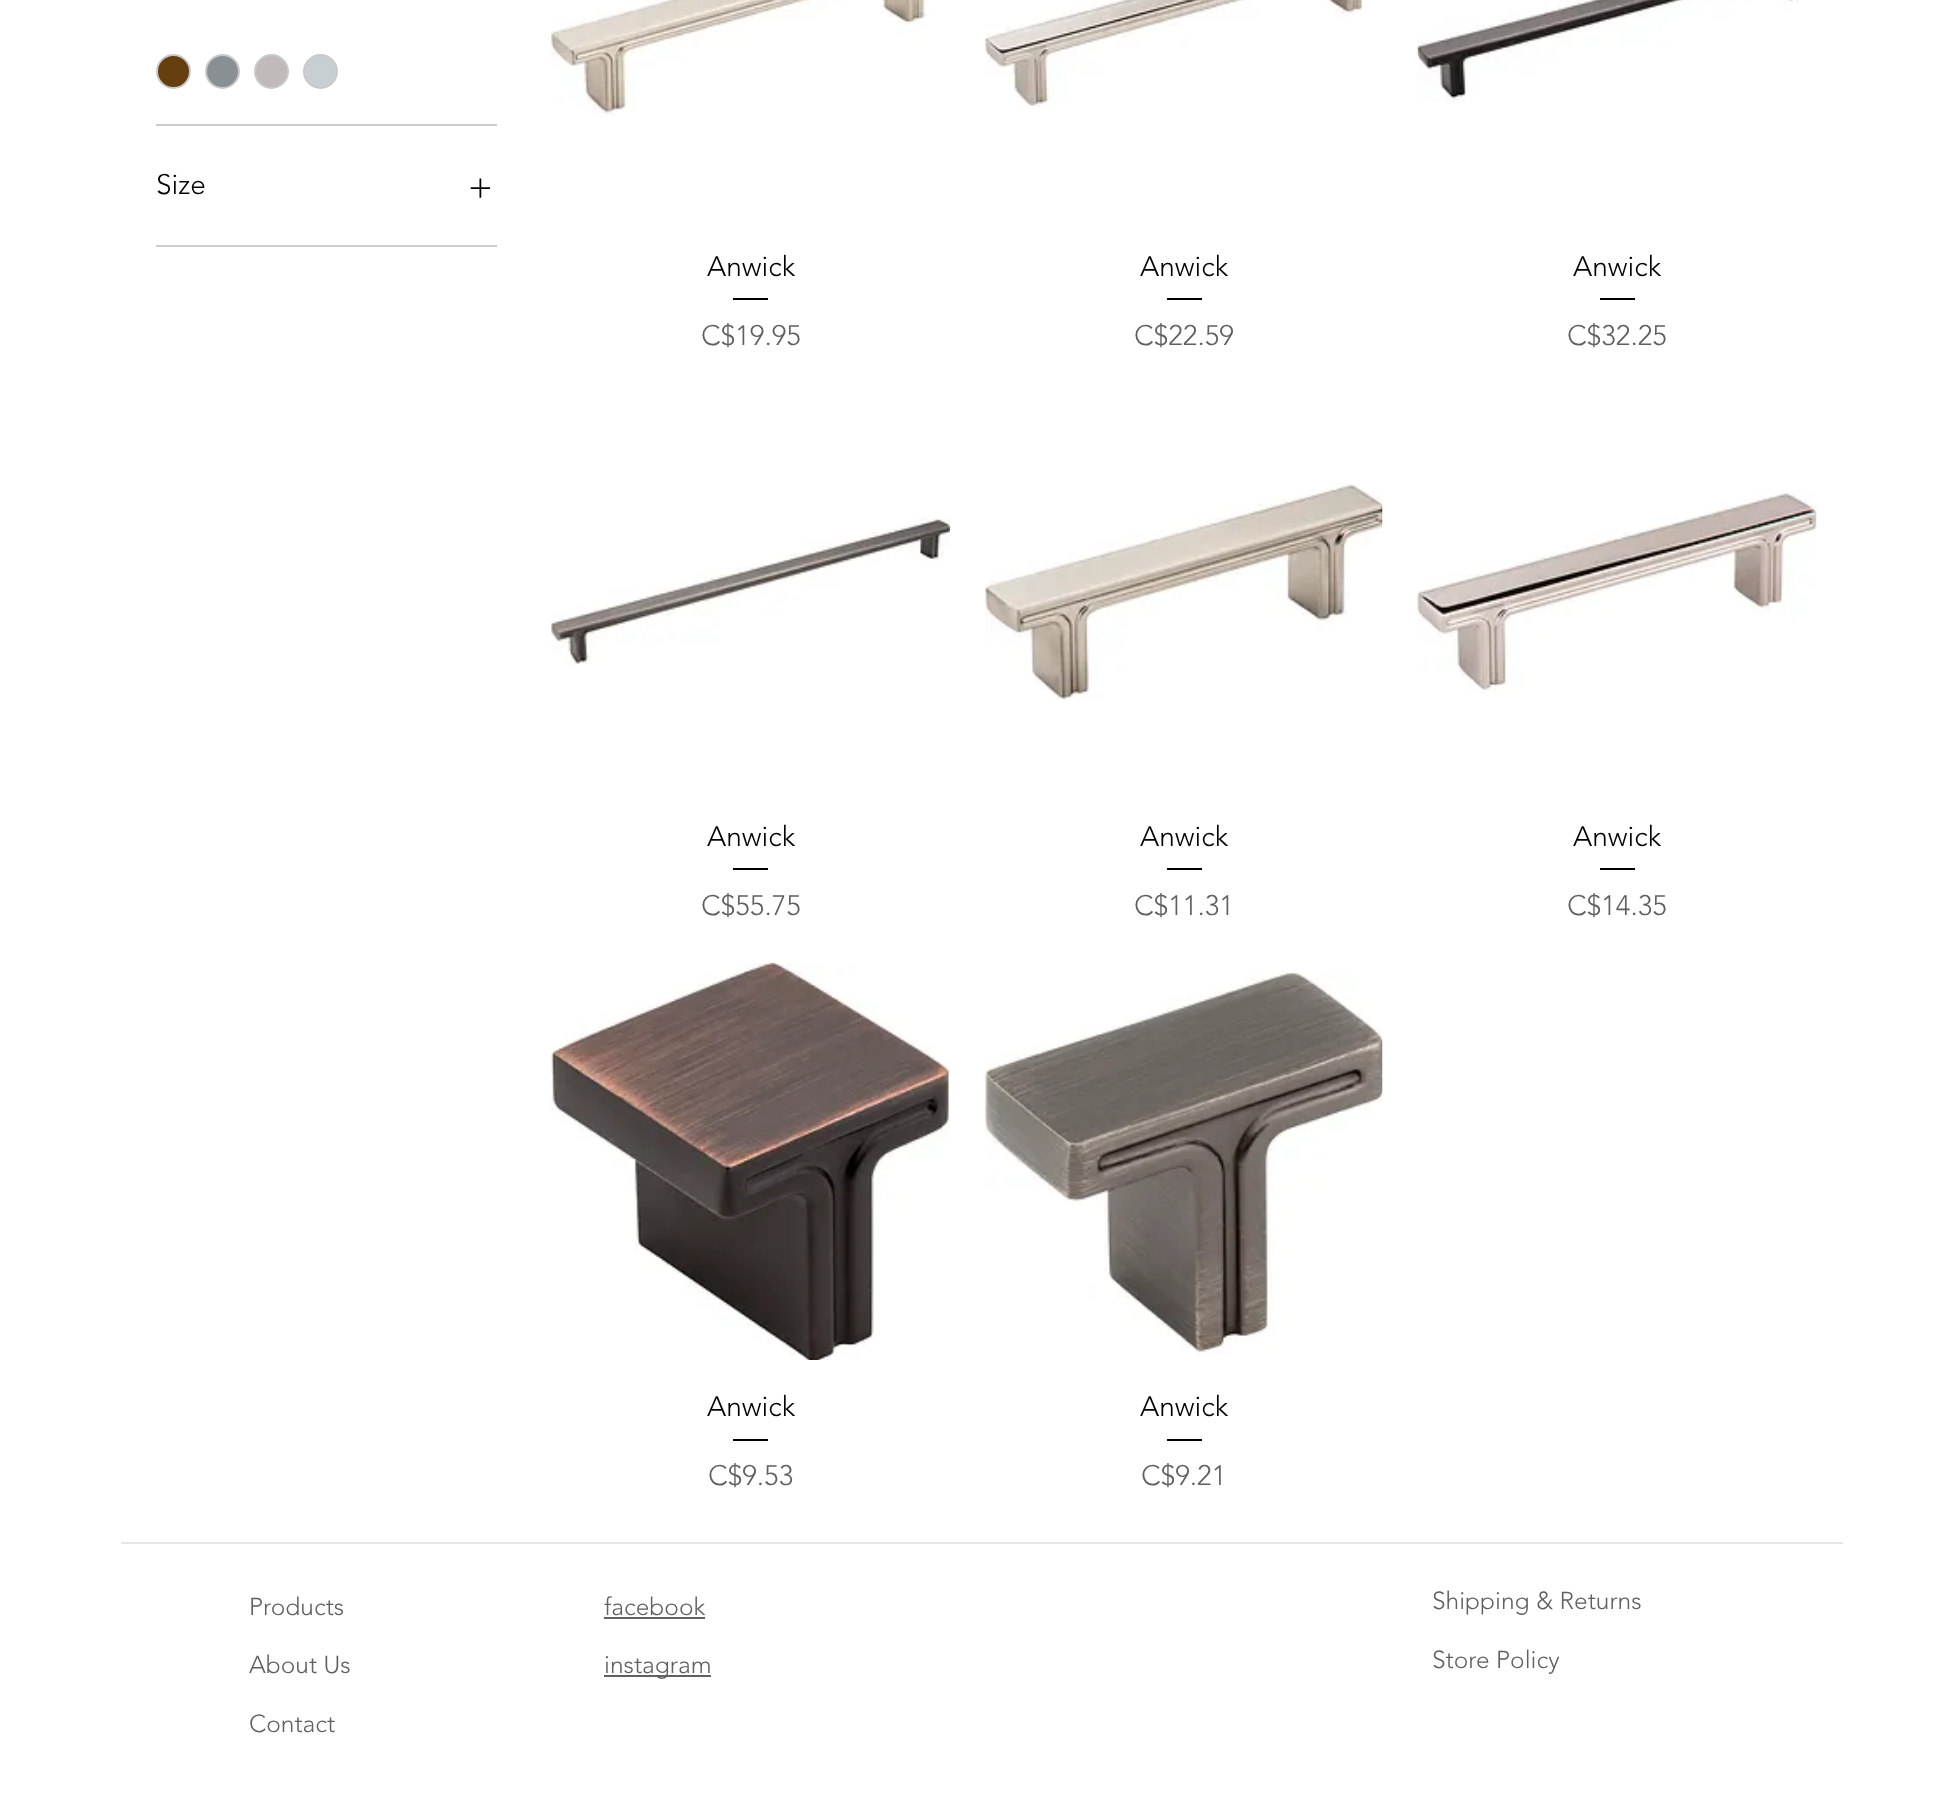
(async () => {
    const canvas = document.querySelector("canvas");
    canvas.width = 1956;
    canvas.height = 1797;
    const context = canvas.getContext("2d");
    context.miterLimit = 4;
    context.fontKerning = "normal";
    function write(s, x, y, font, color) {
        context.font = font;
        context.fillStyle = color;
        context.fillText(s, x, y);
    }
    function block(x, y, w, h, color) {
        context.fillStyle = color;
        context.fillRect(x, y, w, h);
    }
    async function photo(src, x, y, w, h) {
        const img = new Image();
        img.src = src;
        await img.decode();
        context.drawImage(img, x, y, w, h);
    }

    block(0, 0, 1956, 1797, "rgb(255, 255, 255)");
    block(156, 124, 341, 2, "rgb(204, 204, 204)");
    context.fillStyle = "rgb(101, 63, 15)";
    context.beginPath();
    context.arc(173.5, 71.5, 16.5, 0, Math.PI * 2);
    context.fill();
    context.strokeStyle = "rgb(201, 201, 201)";
    context.lineWidth = 2;
    context.stroke();
    context.fillStyle = "rgb(137, 144, 148)";
    context.beginPath();
    context.arc(222.5, 71.5, 16.5, 0, Math.PI * 2);
    context.fill();
    context.stroke();
    context.fillStyle = "rgb(192, 186, 186)";
    context.beginPath();
    context.arc(271.5, 71.5, 16.5, 0, Math.PI * 2);
    context.fill();
    context.stroke();
    context.fillStyle = "rgb(200, 207, 210)";
    context.beginPath();
    context.arc(320.5, 71.5, 16.5, 0, Math.PI * 2);
    context.fill();
    context.stroke();
    block(156, 245, 341, 2, "rgb(204, 204, 204)");
    write("Size", 156, 194, "300 28px 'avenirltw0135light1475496'", "rgb(0, 0, 0)");
    await photo("media/1.png", 470, 178, 20, 20);
    await photo("media/2.png", 551, 0, 378, 116);
    write("Anwick", 707, 276, "300 28px 'avenirltw0135light1475496'", "rgb(0, 0, 0)");
    block(733, 298, 35, 2, "rgb(0, 0, 0)");
    write("C$19.95", 701, 345, "300 28px 'avenirltw0135light1475496'", "rgb(97, 96, 96)");
    await photo("media/3.png", 985, 0, 379, 109);
    write("Anwick", 1140, 276, "300 28px 'avenirltw0135light1475496'", "rgb(0, 0, 0)");
    block(1167, 298, 35, 2, "rgb(0, 0, 0)");
    write("C$22.59", 1134, 345, "300 28px 'avenirltw0135light1475496'", "rgb(97, 96, 96)");
    await photo("media/4.png", 1417, 0, 382, 102);
    write("Anwick", 1573, 276, "300 28px 'avenirltw0135light1475496'", "rgb(0, 0, 0)");
    block(1600, 298, 35, 2, "rgb(0, 0, 0)");
    write("C$32.25", 1567, 345, "300 28px 'avenirltw0135light1475496'", "rgb(97, 96, 96)");
    await photo("media/5.png", 551, 518, 400, 147);
    write("Anwick", 707, 846, "300 28px 'avenirltw0135light1475496'", "rgb(0, 0, 0)");
    block(733, 868, 35, 2, "rgb(0, 0, 0)");
    write("C$55.75", 701, 915, "300 28px 'avenirltw0135light1475496'", "rgb(97, 96, 96)");
    await photo("media/6.png", 985, 483, 398, 217);
    write("Anwick", 1140, 846, "300 28px 'avenirltw0135light1475496'", "rgb(0, 0, 0)");
    block(1167, 868, 35, 2, "rgb(0, 0, 0)");
    write("C$11.31", 1134, 915, "300 28px 'avenirltw0135light1475496'", "rgb(97, 96, 96)");
    await photo("media/7.png", 1417, 490, 400, 203);
    write("Anwick", 1573, 846, "300 28px 'avenirltw0135light1475496'", "rgb(0, 0, 0)");
    block(1600, 868, 35, 2, "rgb(0, 0, 0)");
    write("C$14.35", 1567, 915, "300 28px 'avenirltw0135light1475496'", "rgb(97, 96, 96)");
    await photo("media/8.png", 551, 962, 399, 398);
    write("Anwick", 707, 1416, "300 28px 'avenirltw0135light1475496'", "rgb(0, 0, 0)");
    block(733, 1439, 35, 2, "rgb(0, 0, 0)");
    write("C$9.53", 708, 1485, "300 28px 'avenirltw0135light1475496'", "rgb(97, 96, 96)");
    await photo("media/9.png", 985, 970, 398, 385);
    write("Anwick", 1140, 1416, "300 28px 'avenirltw0135light1475496'", "rgb(0, 0, 0)");
    block(1167, 1439, 35, 2, "rgb(0, 0, 0)");
    write("C$9.21", 1141, 1485, "300 28px 'avenirltw0135light1475496'", "rgb(97, 96, 96)");
    block(121, 1542, 1722, 2, "rgb(232, 230, 230)");
    write("Products", 249, 1615, "300 24.5px 'avenirltw0135light1475496'", "rgb(97, 96, 96)");
    write("About Us", 249, 1673, "300 24.5px 'avenirltw0135light1475496'", "rgb(97, 96, 96)");
    write("Contact", 249, 1732, "300 24.5px 'avenirltw0135light1475496'", "rgb(97, 96, 96)");
    write("facebook", 604, 1615, "300 24.5px 'avenirltw0135light1475496'", "rgb(97, 96, 96)");
    block(604, 1617, 101, 2, "rgb(97, 96, 96)");
    block(604, 1675, 107, 2, "rgb(97, 96, 96)");
    write("instagram", 604, 1673, "300 24.5px 'avenirltw0135light1475496'", "rgb(97, 96, 96)");
    write("Shipping & Returns", 1432, 1609, "300 24.5px 'avenirltw0135light1475496'", "rgb(97, 96, 96)");
    write("Store Policy", 1432, 1668, "300 24.5px 'avenirltw0135light1475496'", "rgb(97, 96, 96)");
})();
